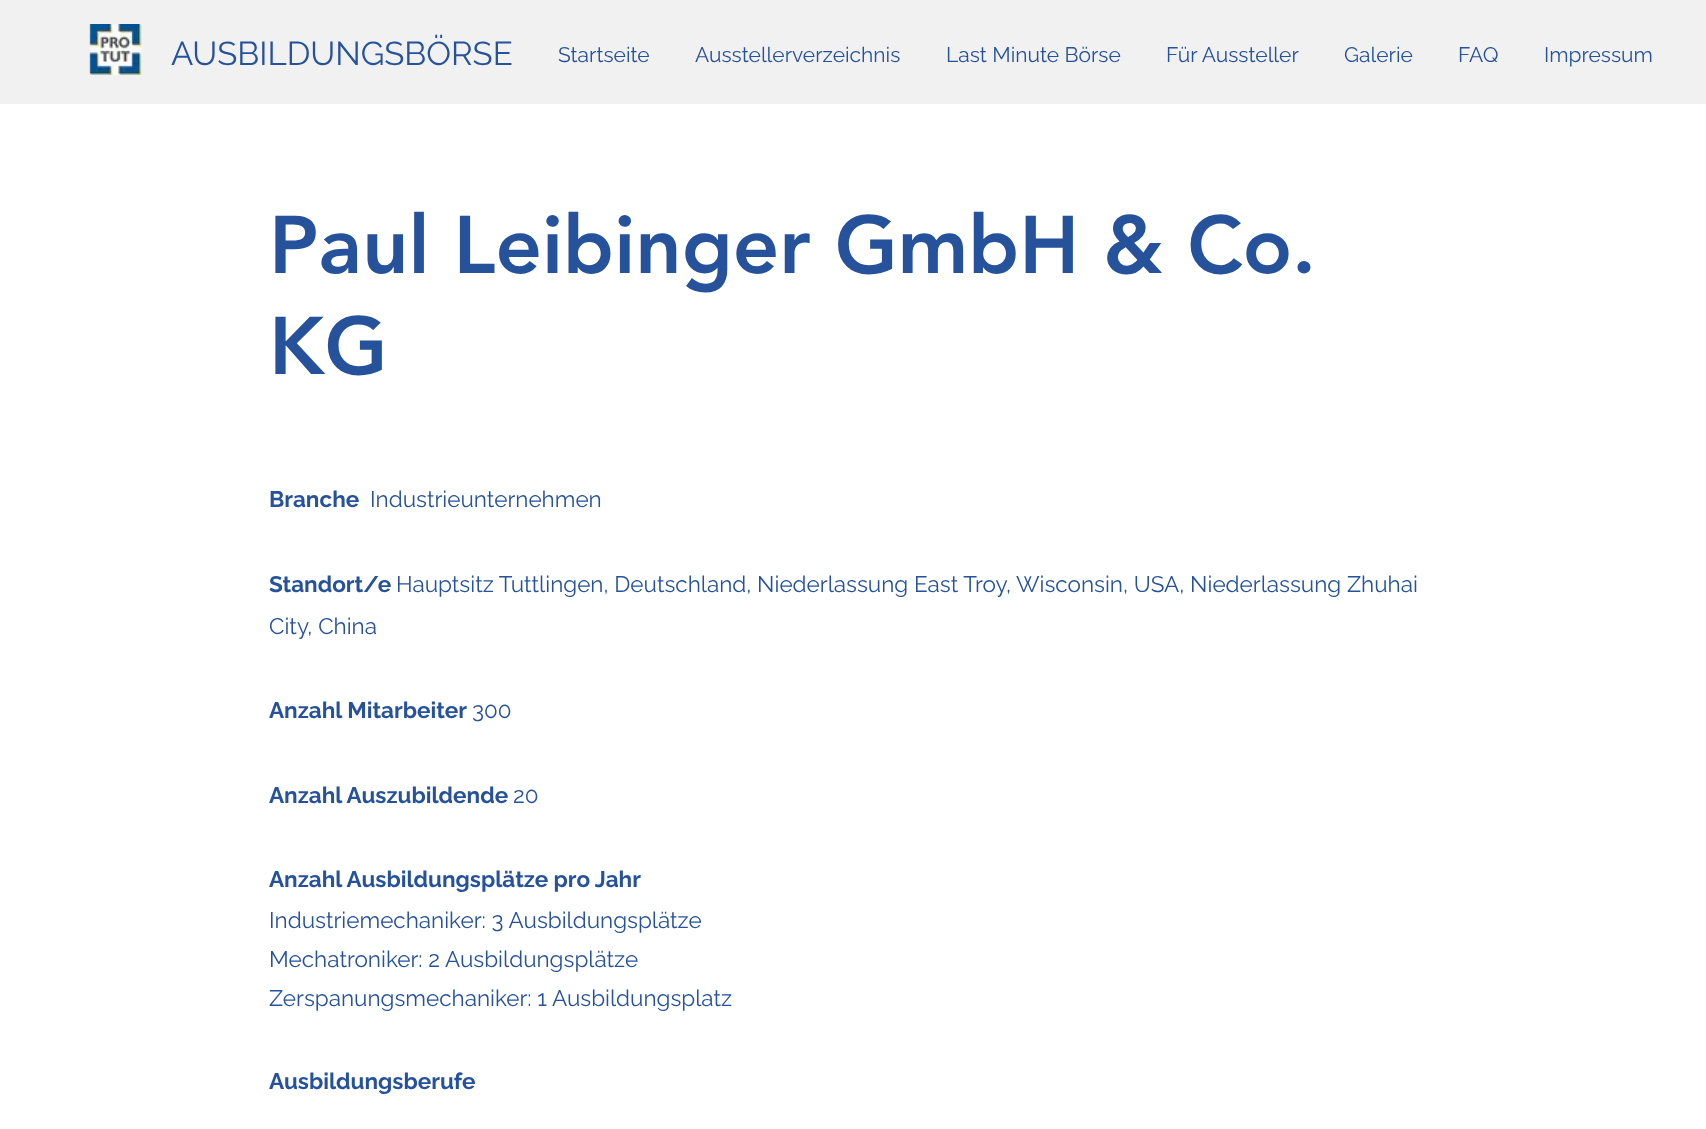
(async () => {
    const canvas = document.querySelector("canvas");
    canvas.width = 1706;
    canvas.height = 1129;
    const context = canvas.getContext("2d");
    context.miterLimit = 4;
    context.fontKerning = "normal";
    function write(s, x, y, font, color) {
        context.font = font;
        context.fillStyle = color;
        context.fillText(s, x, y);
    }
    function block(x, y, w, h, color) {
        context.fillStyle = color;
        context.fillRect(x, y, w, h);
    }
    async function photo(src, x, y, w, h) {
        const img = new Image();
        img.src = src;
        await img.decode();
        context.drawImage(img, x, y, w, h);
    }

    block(0, 0, 1706, 1129, "rgb(255, 255, 255)");
    block(0, 0, 1706, 104, "rgb(241, 241, 241)");
    await photo("media/1.png", 89, 24, 53, 51);
    write("AUSBILDUNGSBÖRSE", 171, 65, "33px Raleway", "rgb(38, 82, 156)");
    write("Startseite", 558, 62, "21px Raleway", "rgb(38, 82, 156)");
    write("Ausstellerverzeichnis", 695, 62, "21px Raleway", "rgb(38, 82, 156)");
    write("Last Minute Börse", 946, 62, "21px Raleway", "rgb(38, 82, 156)");
    write("Für Aussteller", 1166, 62, "21px Raleway", "rgb(38, 82, 156)");
    write("Galerie", 1344, 62, "21px Raleway", "rgb(38, 82, 156)");
    write("FAQ", 1458, 62, "21px Raleway", "rgb(38, 82, 156)");
    write("Impressum", 1544, 62, "21px Raleway", "rgb(38, 82, 156)");
    write("Paul Leibinger GmbH & Co.", 269, 273, "900 81px 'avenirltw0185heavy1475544'", "rgb(38, 82, 156)");
    write("KG", 269, 374, "900 81px 'avenirltw0185heavy1475544'", "rgb(38, 82, 156)");
    write("Branche", 269, 507, "bold 22.5px Raleway", "rgb(38, 82, 156)");
    write("Industrieunternehmen", 370, 507, "22.5px Raleway", "rgb(38, 82, 156)");
    write("Standort/e", 269, 592, "bold 22.5px Raleway", "rgb(38, 82, 156)");
    write("Hauptsitz Tuttlingen, Deutschland, Niederlassung East Troy, Wisconsin, USA, Niederlassung Zhuhai", 396, 592, "22.5px Raleway", "rgb(38, 82, 156)");
    write("City, China", 269, 634, "22.5px Raleway", "rgb(38, 82, 156)");
    write("Anzahl Mitarbeiter", 269, 718, "bold 22.5px Raleway", "rgb(38, 82, 156)");
    write("300", 472, 718, "22.5px Raleway", "rgb(38, 82, 156)");
    write("Anzahl Auszubildende", 269, 803, "bold 22.5px Raleway", "rgb(38, 82, 156)");
    write("20", 513, 803, "22.5px Raleway", "rgb(38, 82, 156)");
    write("Anzahl Ausbildungsplätze pro Jahr", 269, 887, "bold 22.5px Raleway", "rgb(38, 82, 156)");
    write("Industriemechaniker: 3 Ausbildungsplätze", 269, 928, "22.5px Raleway", "rgb(38, 82, 156)");
    write("Mechatroniker: 2 Ausbildungsplätze", 269, 967, "22.5px Raleway", "rgb(38, 82, 156)");
    write("Zerspanungsmechaniker: 1 Ausbildungsplatz", 269, 1006, "22.5px Raleway", "rgb(38, 82, 156)");
    write("Ausbildungsberufe", 269, 1089, "bold 22.5px Raleway", "rgb(38, 82, 156)");
})();
